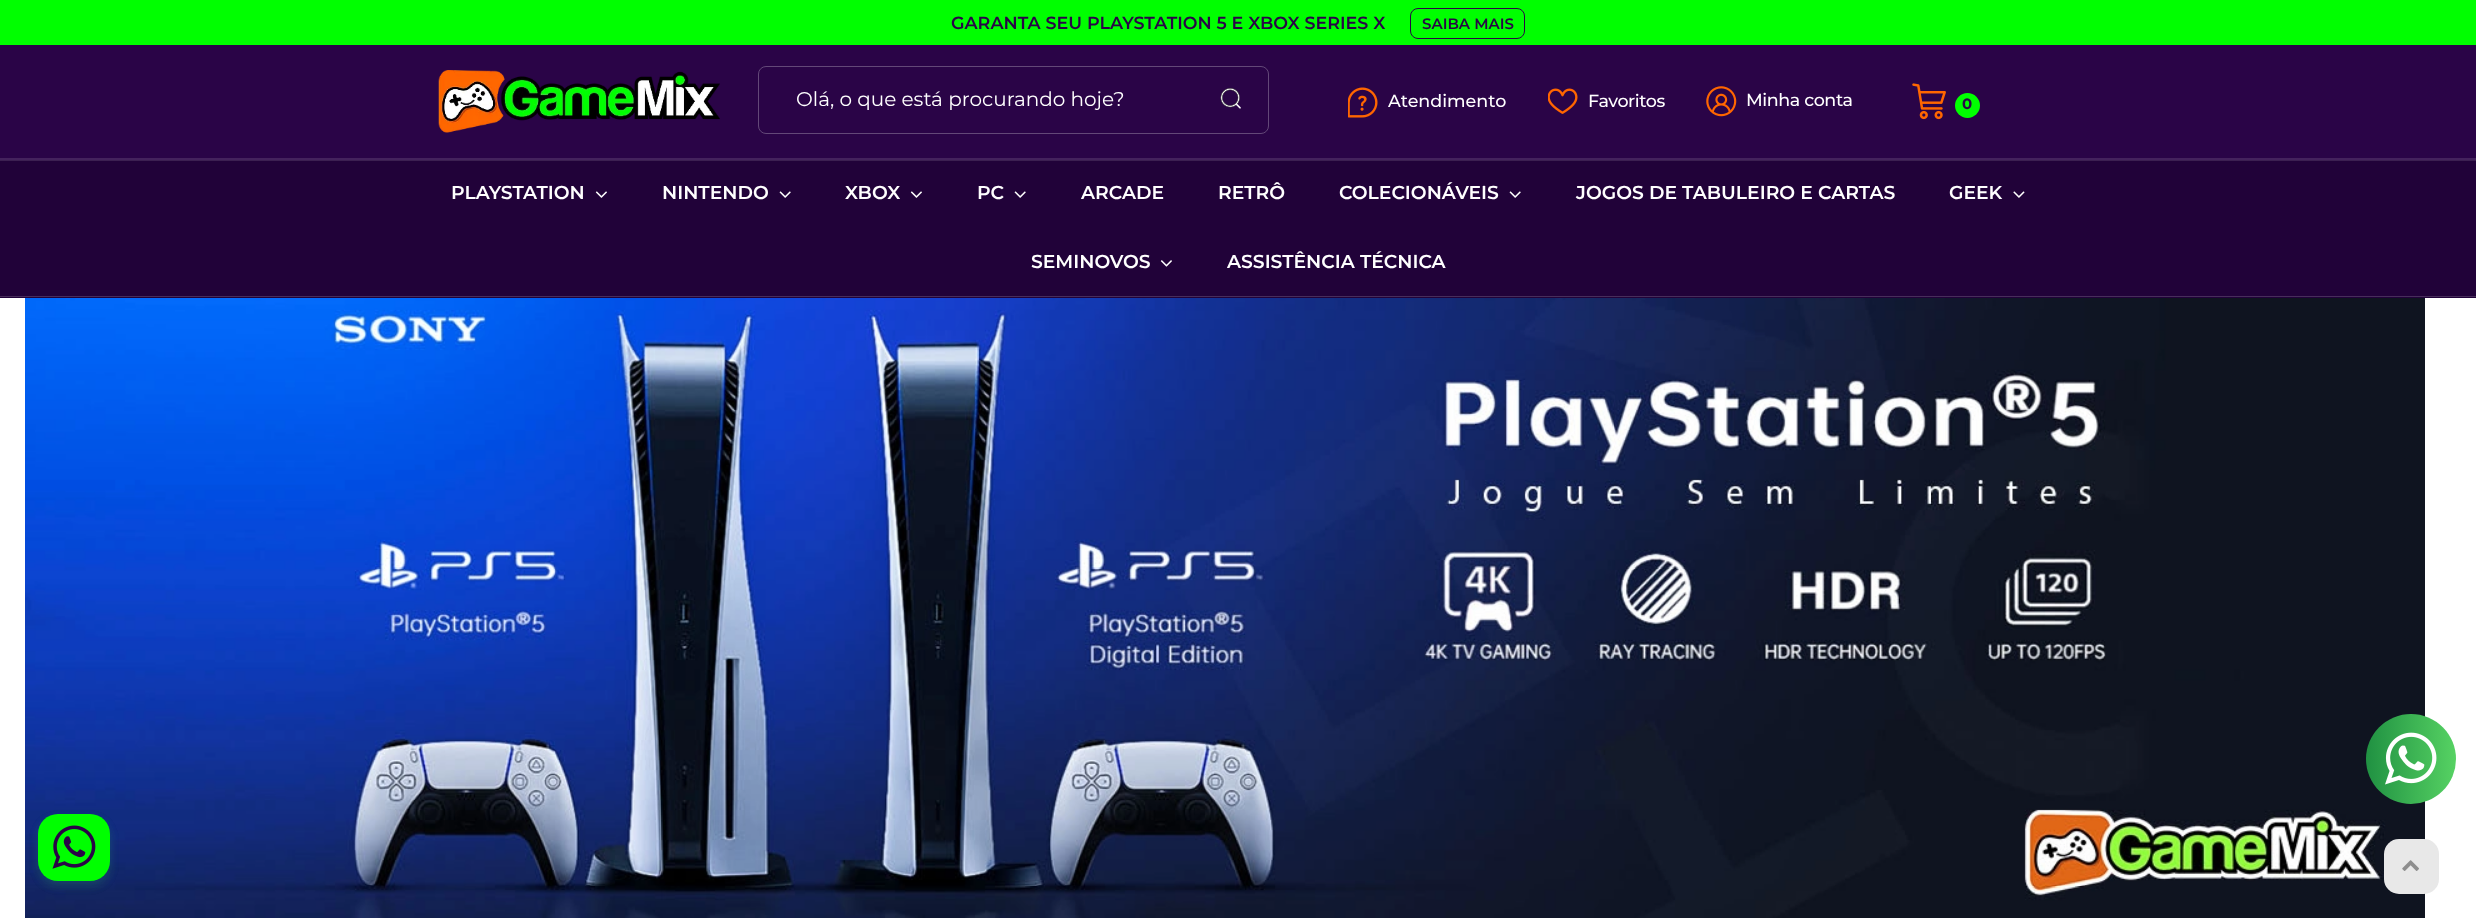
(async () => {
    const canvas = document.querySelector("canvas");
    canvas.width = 2476;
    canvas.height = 918;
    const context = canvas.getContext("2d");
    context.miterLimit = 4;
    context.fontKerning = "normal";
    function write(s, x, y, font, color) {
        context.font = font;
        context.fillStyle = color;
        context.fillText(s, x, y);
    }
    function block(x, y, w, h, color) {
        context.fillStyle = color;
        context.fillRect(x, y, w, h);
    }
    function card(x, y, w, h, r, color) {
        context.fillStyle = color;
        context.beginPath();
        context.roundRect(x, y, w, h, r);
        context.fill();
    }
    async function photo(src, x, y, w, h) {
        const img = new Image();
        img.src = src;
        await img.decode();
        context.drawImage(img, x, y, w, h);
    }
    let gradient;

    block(0, 0, 2476, 918, "rgb(255, 255, 255)");
    block(0, 0, 2476, 45, "rgb(0, 255, 0)");
    write("GARANTA SEU PLAYSTATION 5 E XBOX SERIES X", 951, 29, "600 17.5px Montserrat", "rgb(42, 4, 71)");
    context.beginPath();
    context.roundRect(1410.5, 8.5, 114, 30, 7.5);
    context.strokeStyle = "rgb(42, 4, 71)";
    context.stroke();
    write("SAIBA MAIS", 1422, 29, "600 15px Montserrat", "rgb(42, 4, 71)");
    block(0, 45, 2476, 113, "rgb(42, 4, 71)");
    block(0, 158, 2476, 2, "rgb(68, 34, 93)");
    await photo("media/1.png", 438, 70, 282, 63);
    context.beginPath();
    context.roundRect(758.5, 66.5, 510, 67, 7.5);
    context.strokeStyle = "rgb(99, 72, 120)";
    context.stroke();
    write("Olá, o que está procurando hoje?", 796, 106, "20px Montserrat", "rgb(255, 255, 255)");
    await photo("media/2.png", 1220, 88, 21, 21);
    await photo("media/3.png", 1348, 87, 30, 31);
    write("Atendimento", 1388, 107, "500 17.5px Montserrat", "rgb(255, 255, 255)");
    await photo("media/4.png", 1548, 88, 30, 26);
    context.letterSpacing = "-0.4px";
    write("Favoritos", 1588, 107, "500 17.5px Montserrat", "rgb(255, 255, 255)");
    await photo("media/5.png", 1706, 86, 31, 31);
    write("Minha conta", 1746, 106, "500 17.5px Montserrat", "rgb(255, 255, 255)");
    await photo("media/6.png", 1912, 83, 34, 37);
    context.fillStyle = "rgb(0, 255, 0)";
    context.beginPath();
    context.arc(1967.5, 105.5, 12.5, 0, Math.PI * 2);
    context.fill();
    context.letterSpacing = "0px";
    write("0", 1962, 109, "bold 15px Montserrat", "rgb(42, 4, 71)");
    block(0, 161, 2476, 137, "rgb(33, 2, 57)");
    block(0, 160, 2476, 1, "rgb(60, 32, 81)");
    block(0, 296, 2476, 1, "rgb(71, 45, 91)");
    write("PLAYSTATION", 451, 199, "600 18.75px Montserrat", "rgb(255, 255, 255)");
    await photo("media/7.png", 595, 191, 12, 7);
    write("NINTENDO", 662, 199, "600 18.75px Montserrat", "rgb(255, 255, 255)");
    await photo("media/8.png", 779, 191, 12, 7);
    write("XBOX", 845, 199, "600 18.75px Montserrat", "rgb(255, 255, 255)");
    await photo("media/7.png", 910, 191, 12, 7);
    write("PC", 977, 199, "600 18.75px Montserrat", "rgb(255, 255, 255)");
    await photo("media/8.png", 1014, 191, 12, 7);
    write("ARCADE", 1081, 199, "600 18.75px Montserrat", "rgb(255, 255, 255)");
    write("RETRÔ", 1218, 199, "600 18.75px Montserrat", "rgb(255, 255, 255)");
    write("COLECIONÁVEIS", 1339, 199, "600 18.75px Montserrat", "rgb(255, 255, 255)");
    await photo("media/8.png", 1509, 191, 12, 7);
    write("JOGOS DE TABULEIRO E CARTAS", 1576, 199, "600 18.75px Montserrat", "rgb(255, 255, 255)");
    write("GEEK", 1949, 199, "600 18.75px Montserrat", "rgb(255, 255, 255)");
    await photo("media/9.png", 2013, 191, 12, 7);
    write("SEMINOVOS", 1031, 268, "600 18.75px Montserrat", "rgb(255, 255, 255)");
    await photo("media/10.png", 1160, 260, 12, 7);
    write("ASSISTÊNCIA TÉCNICA", 1227, 268, "600 18.75px Montserrat", "rgb(255, 255, 255)");
    await photo("media/11.png", 25, 298, 2400, 620);
    gradient = context.createLinearGradient(2366, 759, 2456, 759);
    gradient.addColorStop(0, "rgb(32, 145, 66)");
    gradient.addColorStop(1, "rgb(86, 210, 99)");
    context.fillStyle = gradient;
    context.beginPath();
    context.arc(2411, 759, 45, 0, Math.PI * 2);
    context.fill();
    await photo("media/12.png", 2385, 732, 52, 53);
    context.fillStyle = "rgba(41, 162, 89, 0.13)";
    context.filter = "blur(5px)";
    context.beginPath();
    context.roundRect(38, 819, 72, 67, 20);
    context.fill();
    context.filter = "none";
    context.filter = "blur(5px)";
    context.beginPath();
    context.roundRect(38, 819, 72, 67, 20);
    context.fill();
    context.filter = "none";
    card(38, 814, 72, 67, 20, "rgb(0, 255, 0)");
    await photo("media/13.png", 52, 825, 44, 44);
    card(2384, 839, 55, 55, 15, "rgb(232, 232, 232)");
    await photo("media/14.png", 2402, 860, 17, 11);
})();
